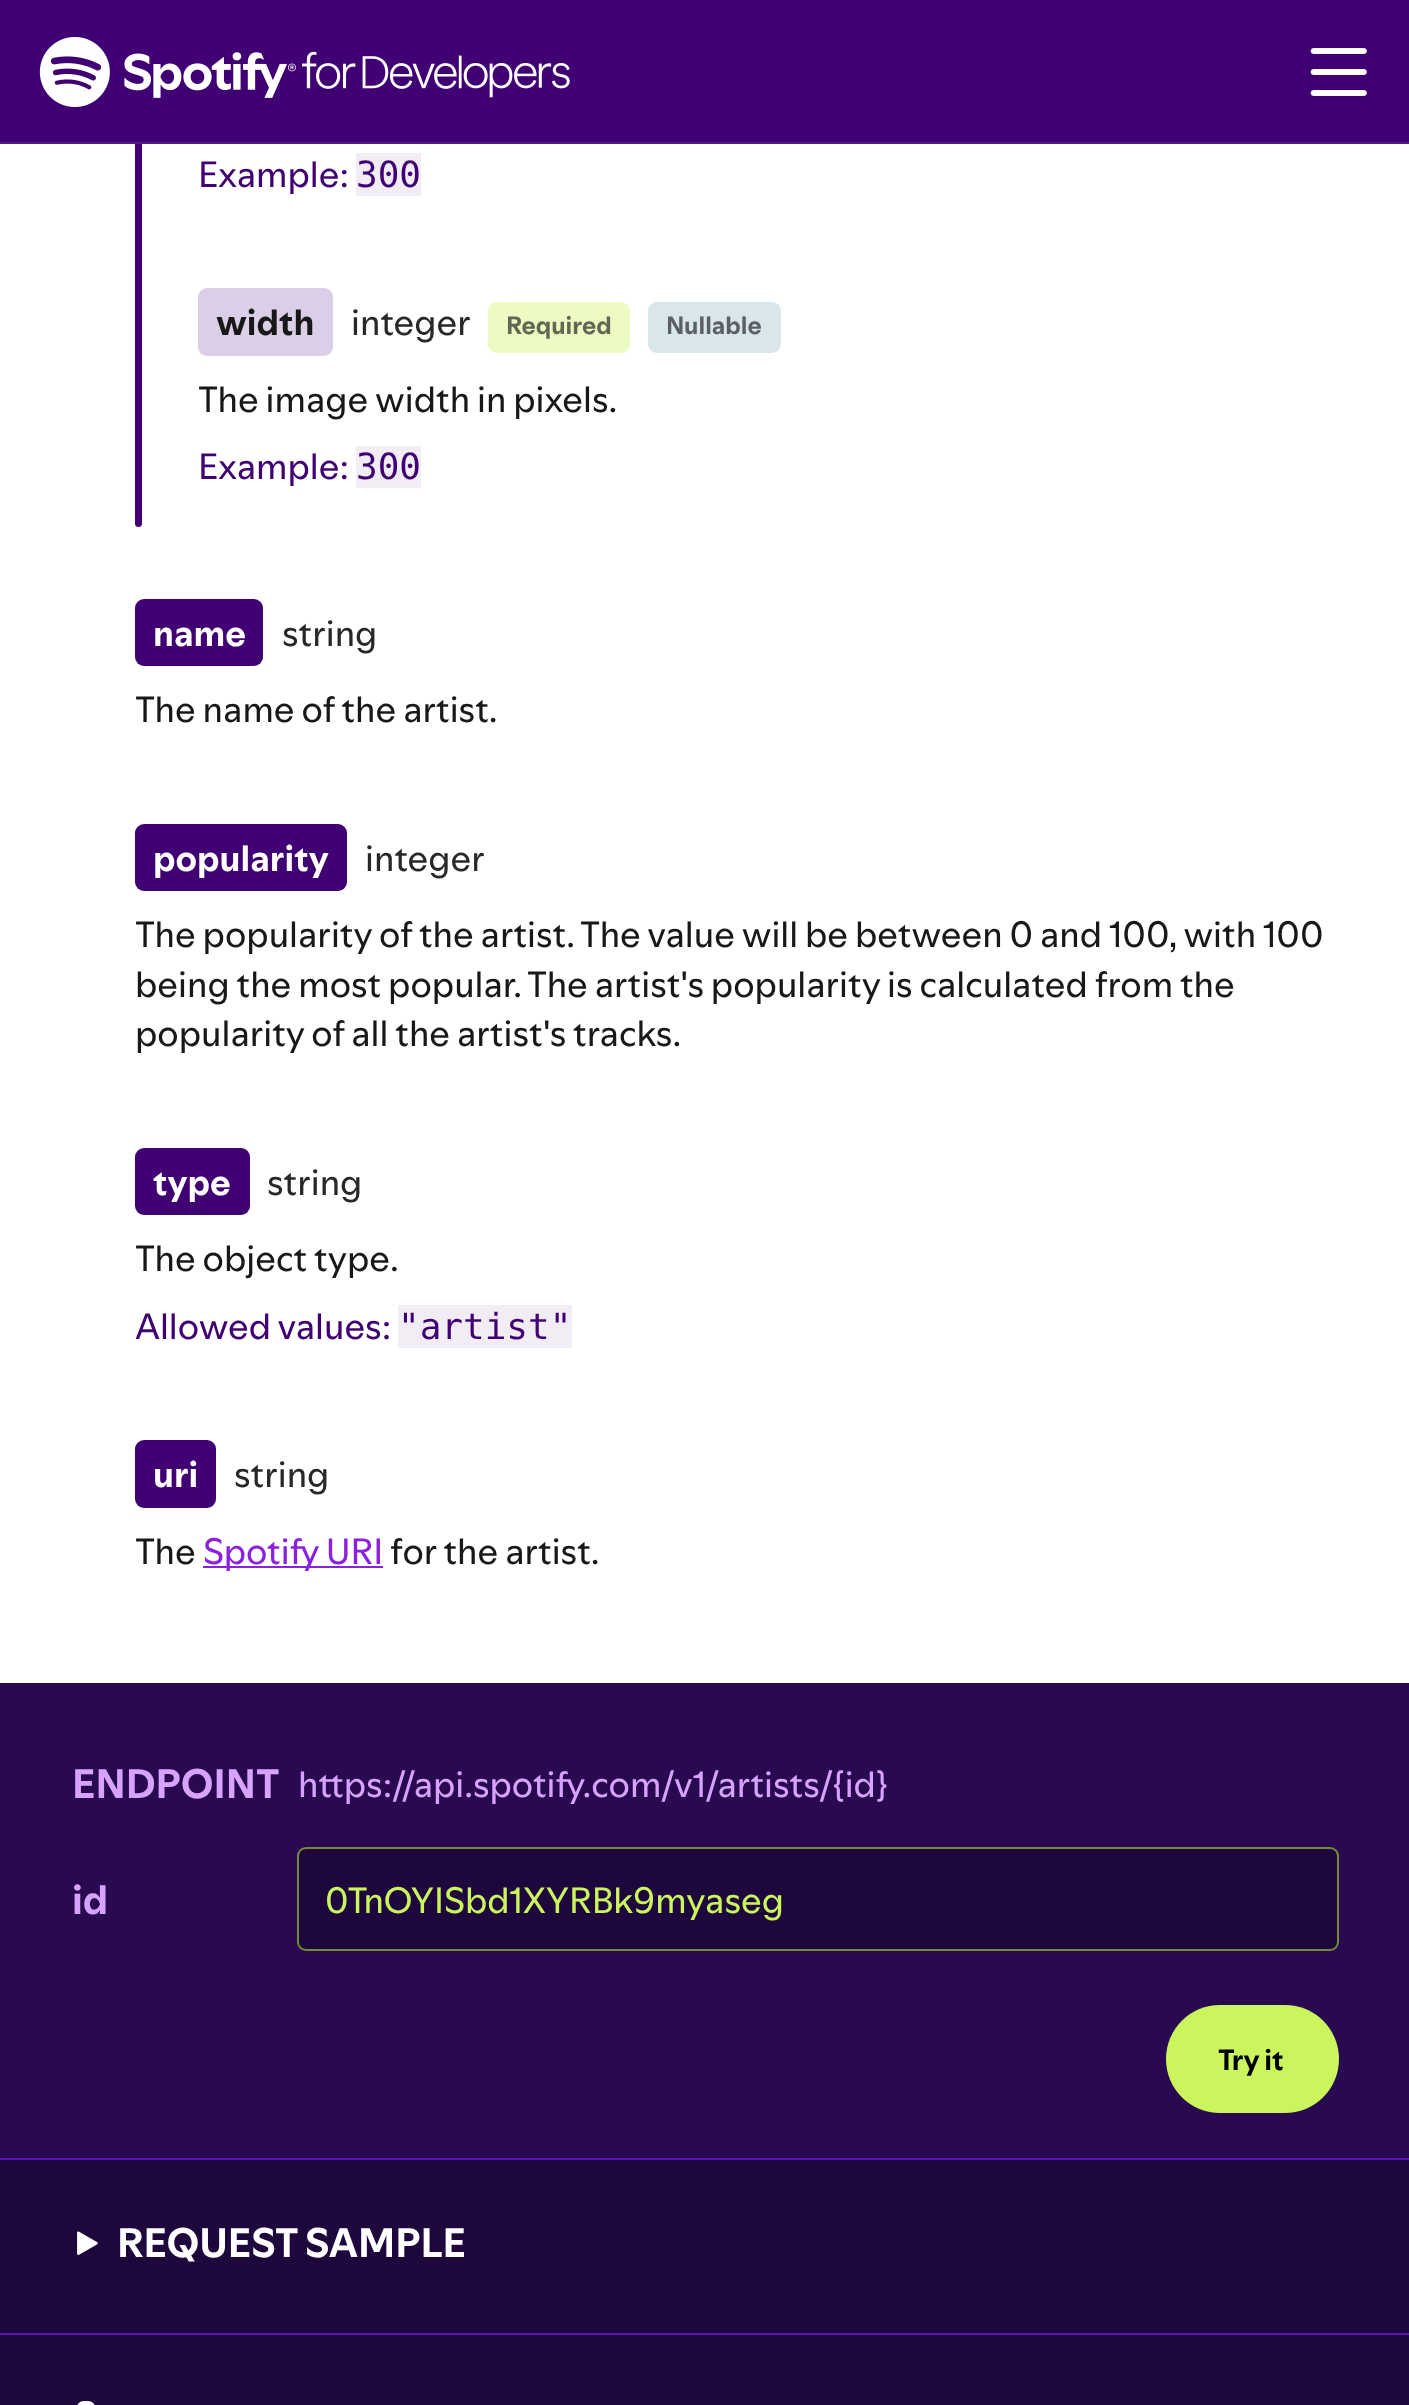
(async () => {
    const canvas = document.querySelector("canvas");
    canvas.width = 1409;
    canvas.height = 2405;
    const context = canvas.getContext("2d");
    context.miterLimit = 4;
    context.fontKerning = "normal";
    function write(s, x, y, font, color) {
        context.font = font;
        context.fillStyle = color;
        context.fillText(s, x, y);
    }
    function block(x, y, w, h, color) {
        context.fillStyle = color;
        context.fillRect(x, y, w, h);
    }
    function card(x, y, w, h, r, color) {
        context.fillStyle = color;
        context.beginPath();
        context.roundRect(x, y, w, h, r);
        context.fill();
    }
    async function photo(src, x, y, w, h) {
        const img = new Image();
        img.src = src;
        await img.decode();
        context.drawImage(img, x, y, w, h);
    }

    block(0, 0, 1409, 2405, "rgb(255, 255, 255)");
    card(135, -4, 7, 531, 3.5, "rgb(64, 0, 115)");
    block(0, 0, 1409, 142, "rgb(64, 0, 115)");
    block(0, 142, 1409, 2, "rgb(83, 26, 129)");
    await photo("media/1.png", 39, 37, 531, 71);
    await photo("media/2.png", 1310, 48, 57, 48);
    write("Example:", 198, 187, "36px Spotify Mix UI", "rgb(64, 0, 115)");
    block(356, 153, 65, 43, "rgb(242, 237, 245)");
    write("300", 356, 187, "36px DejaVu Sans Mono", "rgb(64, 0, 115)");
    card(198, 288, 135, 68, 9, "rgb(218, 207, 230)");
    write("width", 216, 335, "bold 36px Spotify Mix UI", "rgb(24, 24, 24)");
    write("integer", 351, 335, "36px Spotify Mix UI", "rgb(40, 40, 40)");
    card(488, 302, 142, 51, 9, "rgb(235, 251, 193)");
    write("Required", 506, 334, "bold 24.75px Spotify Mix UI", "rgb(98, 103, 83)");
    card(648, 302, 133, 51, 9, "rgb(217, 231, 237)");
    write("Nullable", 666, 334, "bold 24.75px Spotify Mix UI", "rgb(92, 96, 99)");
    write("The image width in pixels.", 198, 412, "36px Spotify Mix UI", "rgb(24, 24, 24)");
    write("Example:", 198, 479, "36px Spotify Mix UI", "rgb(64, 0, 115)");
    block(356, 446, 65, 42, "rgb(242, 237, 245)");
    write("300", 356, 479, "36px DejaVu Sans Mono", "rgb(64, 0, 115)");
    card(135, 599, 128, 67, 9, "rgb(64, 0, 115)");
    write("name", 153, 646, "bold 36px Spotify Mix UI", "rgb(255, 255, 255)");
    write("string", 282, 646, "36px Spotify Mix UI", "rgb(40, 40, 40)");
    write("The name of the artist.", 135, 722, "36px Spotify Mix UI", "rgb(24, 24, 24)");
    card(135, 824, 212, 67, 9, "rgb(64, 0, 115)");
    write("popularity", 153, 871, "bold 36px Spotify Mix UI", "rgb(255, 255, 255)");
    write("integer", 365, 871, "36px Spotify Mix UI", "rgb(40, 40, 40)");
    write("The popularity of the artist. The value will be between 0 and 100, with 100", 135, 947, "36px Spotify Mix UI", "rgb(24, 24, 24)");
    write("being the most popular. The artist's popularity is calculated from the", 135, 997, "36px Spotify Mix UI", "rgb(24, 24, 24)");
    write("popularity of all the artist's tracks.", 135, 1046, "36px Spotify Mix UI", "rgb(24, 24, 24)");
    card(135, 1148, 115, 67, 9, "rgb(64, 0, 115)");
    write("type", 153, 1195, "bold 36px Spotify Mix UI", "rgb(255, 255, 255)");
    write("string", 267, 1195, "36px Spotify Mix UI", "rgb(40, 40, 40)");
    write("The object type.", 135, 1271, "36px Spotify Mix UI", "rgb(24, 24, 24)");
    write("Allowed values:", 135, 1339, "36px Spotify Mix UI", "rgb(64, 0, 115)");
    block(398, 1305, 174, 43, "rgb(242, 237, 245)");
    write("\"artist\"", 398, 1339, "36px DejaVu Sans Mono", "rgb(64, 0, 115)");
    card(135, 1440, 81, 68, 9, "rgb(64, 0, 115)");
    write("uri", 153, 1487, "bold 36px Spotify Mix UI", "rgb(255, 255, 255)");
    write("string", 234, 1487, "36px Spotify Mix UI", "rgb(40, 40, 40)");
    write("The", 135, 1564, "36px Spotify Mix UI", "rgb(24, 24, 24)");
    block(203, 1566, 180, 2, "rgb(140, 32, 223)");
    write("Spotify URI", 203, 1564, "36px Spotify Mix UI", "rgb(140, 32, 223)");
    write("for the artist.", 390, 1564, "36px Spotify Mix UI", "rgb(24, 24, 24)");
    block(0, 2160, 1409, 245, "rgb(30, 7, 60)");
    block(0, 1683, 1409, 475, "rgb(41, 10, 80)");
    write("ENDPOINT", 72, 1798, "bold 40.5px Spotify Mix UI", "rgb(216, 163, 255)");
    write("https://api.spotify.com/v1/artists/{id}", 298, 1797, "36px Spotify Mix UI", "rgb(216, 163, 255)");
    write("id", 72, 1914, "bold 40.5px Spotify Mix UI", "rgb(216, 163, 255)");
    context.fillStyle = "rgb(30, 7, 60)";
    context.beginPath();
    context.roundRect(298, 1848, 1040, 102, 8);
    context.fill();
    context.strokeStyle = "rgb(115, 138, 54)";
    context.lineWidth = 2;
    context.stroke();
    write("0TnOYISbd1XYRBk9myaseg", 325, 1913, "36px Spotify Mix UI", "rgb(203, 245, 92)");
    card(1166, 2005, 173, 108, 54, "rgb(203, 245, 92)");
    write("Try it", 1218, 2070, "bold 29px Spotify Mix UI", "rgb(0, 0, 0)");
    block(0, 2158, 1409, 2, "rgb(92, 19, 181)");
    await photo("media/3.png", 77, 2231, 21, 24);
    write("REQUEST SAMPLE", 117, 2257, "bold 40.5px Spotify Mix UI", "rgb(255, 255, 255)");
    block(0, 2333, 1409, 2, "rgb(92, 19, 181)");
    card(77, 2401, 18, 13, 9, "rgb(255, 255, 255)");
})();
